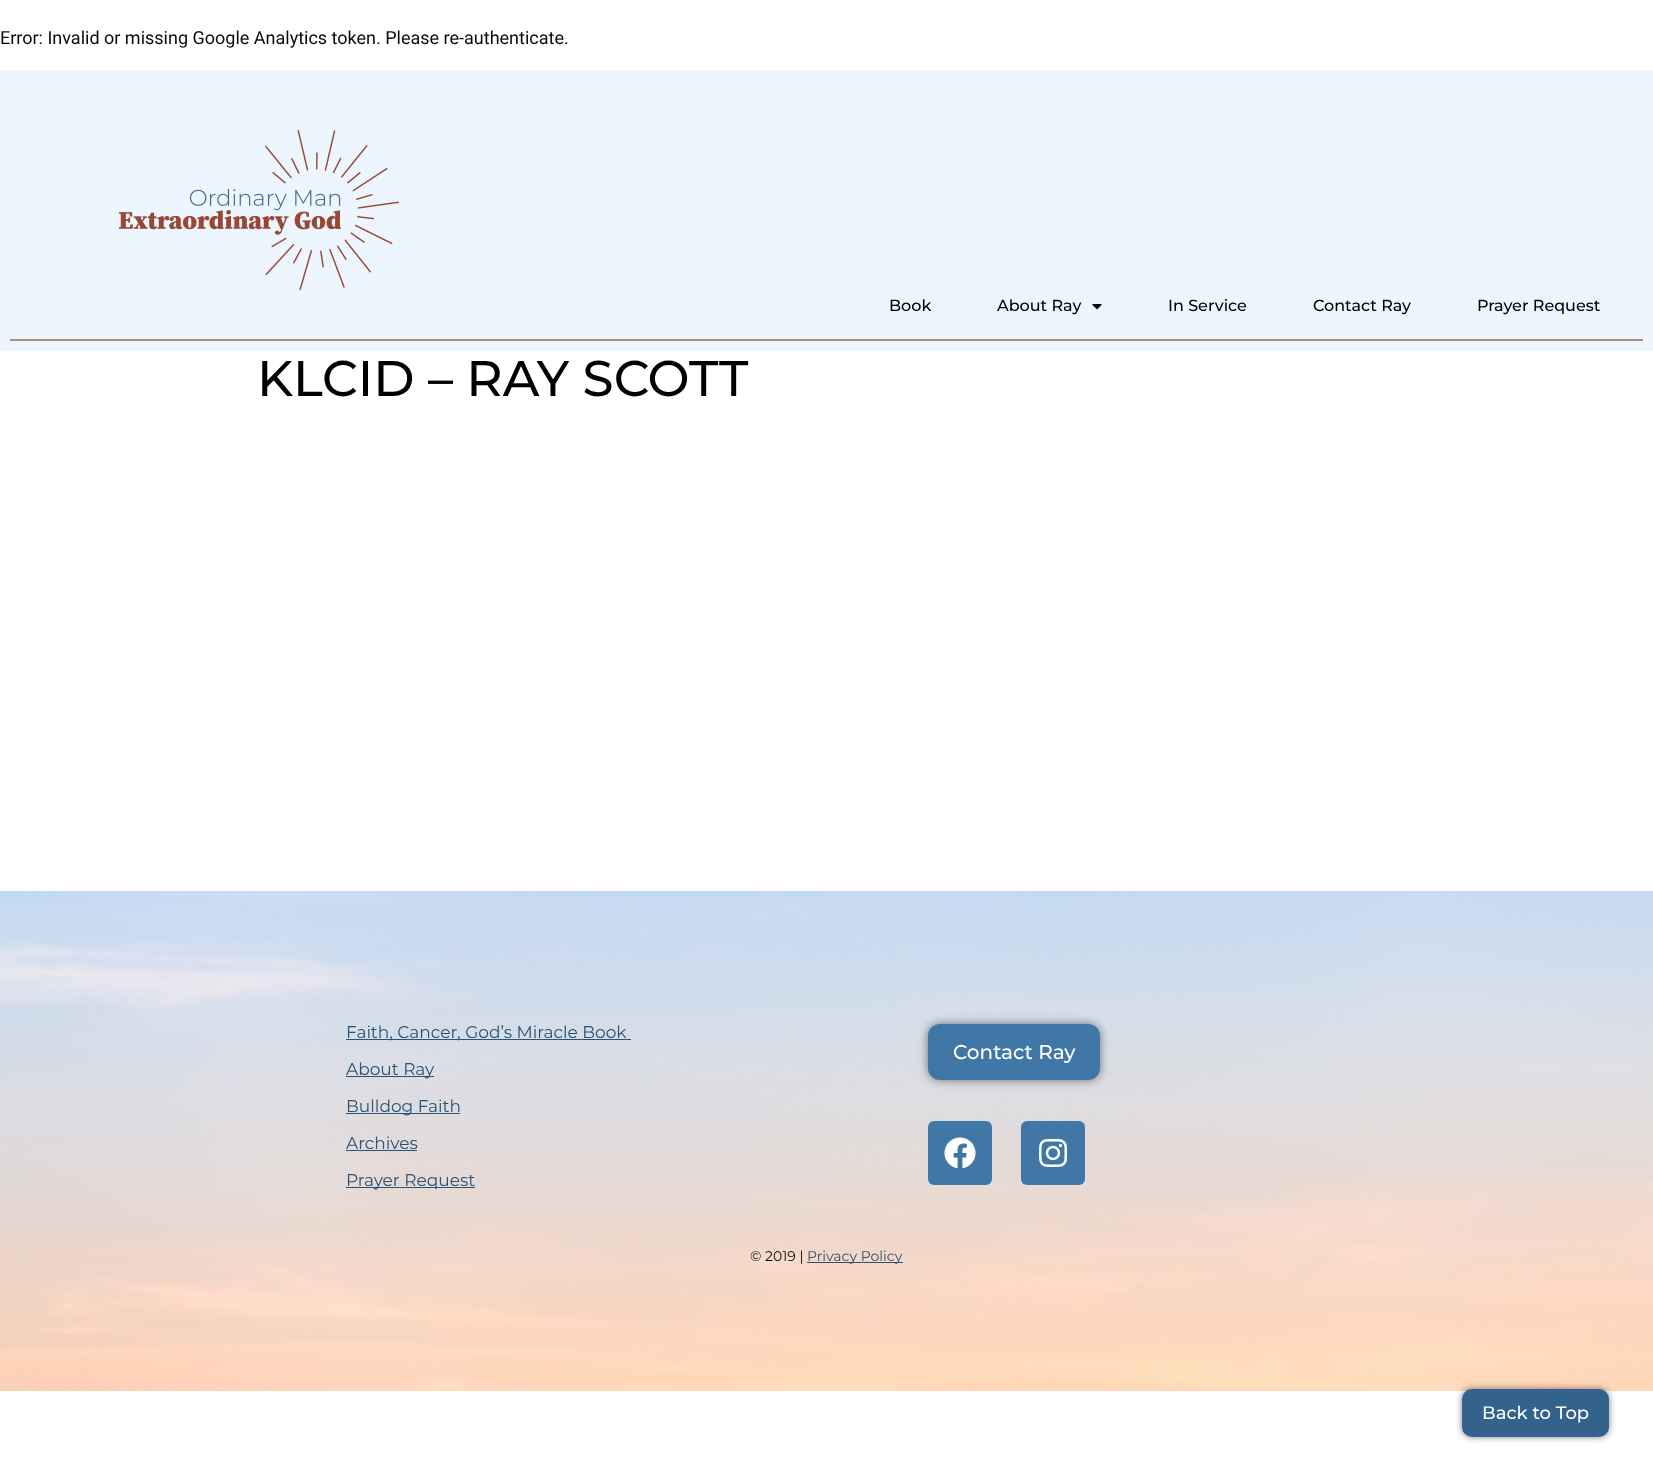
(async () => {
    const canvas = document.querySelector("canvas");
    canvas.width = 1653;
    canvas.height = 1481;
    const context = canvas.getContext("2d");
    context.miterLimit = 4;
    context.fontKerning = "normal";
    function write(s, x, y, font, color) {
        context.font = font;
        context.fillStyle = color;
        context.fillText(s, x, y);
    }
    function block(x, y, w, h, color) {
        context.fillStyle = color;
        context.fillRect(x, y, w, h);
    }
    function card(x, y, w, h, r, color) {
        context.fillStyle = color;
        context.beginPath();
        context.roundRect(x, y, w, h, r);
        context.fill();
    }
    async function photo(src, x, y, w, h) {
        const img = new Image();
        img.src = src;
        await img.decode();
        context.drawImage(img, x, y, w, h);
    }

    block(0, 0, 1653, 1481, "rgb(255, 255, 255)");
    write("Error: Invalid or missing Google Analytics token. Please re-authenticate.", 0, 44, "18px Roboto", "rgb(12, 11, 11)");
    write("KLCID – RAY SCOTT", 257, 396, "500 50px Montserrat", "rgb(0, 0, 0)");
    block(0, 70, 1653, 281, "rgb(237, 246, 255)");
    block(10, 339, 1633, 2, "rgb(177, 143, 125)");
    await photo("media/1.png", 119, 130, 280, 160);
    write("Book", 889, 311, "500 16px Montserrat", "rgb(0, 0, 0)");
    write("About Ray", 997, 311, "500 16px Montserrat", "rgb(0, 0, 0)");
    await photo("media/2.png", 1092, 304, 10, 6);
    write("In Service", 1168, 311, "500 16px Montserrat", "rgb(0, 0, 0)");
    write("Contact Ray", 1313, 311, "500 16px Montserrat", "rgb(0, 0, 0)");
    write("Prayer Request", 1477, 311, "500 16px Montserrat", "rgb(0, 0, 0)");
    await photo("media/3.png", 0, 891, 1653, 500);
    context.fillStyle = "rgba(0, 0, 0, 0.5)";
    context.filter = "blur(3.5px)";
    context.beginPath();
    context.roundRect(1462, 1389, 147, 48, 10);
    context.fill();
    context.filter = "none";
    card(1462, 1389, 147, 48, 10, "rgb(51, 99, 141)");
    write("Back to Top", 1482, 1419, "500 18px Montserrat", "rgb(255, 255, 255)");
    block(346, 1039, 285, 1, "rgb(44, 82, 116)");
    write("Faith, Cancer, God’s Miracle Book", 346, 1038, "17px Montserrat", "rgb(44, 82, 116)");
    block(346, 1076, 88, 1, "rgb(44, 82, 116)");
    write("About Ray", 346, 1075, "17px Montserrat", "rgb(44, 82, 116)");
    block(346, 1113, 114, 1, "rgb(44, 82, 116)");
    write("Bulldog Faith", 346, 1112, "17px Montserrat", "rgb(44, 82, 116)");
    write("Archives", 346, 1149, "17px Montserrat", "rgb(44, 82, 116)");
    block(346, 1150, 71, 1, "rgb(44, 82, 116)");
    block(346, 1187, 129, 1, "rgb(44, 82, 116)");
    write("Prayer Request", 346, 1186, "17px Montserrat", "rgb(44, 82, 116)");
    context.fillStyle = "rgba(0, 0, 0, 0.5)";
    context.filter = "blur(5px)";
    context.beginPath();
    context.roundRect(928, 1024, 172, 56, 12);
    context.fill();
    context.filter = "none";
    card(928, 1024, 172, 56, 12, "rgb(65, 119, 166)");
    write("Contact Ray", 953, 1059, "500 20px Montserrat", "rgb(255, 255, 255)");
    card(928, 1121, 64, 64, 6, "rgb(65, 119, 166)");
    await photo("media/4.png", 944, 1137, 32, 32);
    card(1021, 1121, 64, 64, 6, "rgb(65, 119, 166)");
    await photo("media/5.png", 1039, 1138, 29, 29);
    write("© 2019 |", 750, 1261, "14px Montserrat", "rgb(12, 11, 11)");
    block(807, 1262, 96, 1, "rgb(44, 82, 116)");
    write("Privacy Policy", 807, 1261, "14px Montserrat", "rgb(44, 82, 116)");
})();
